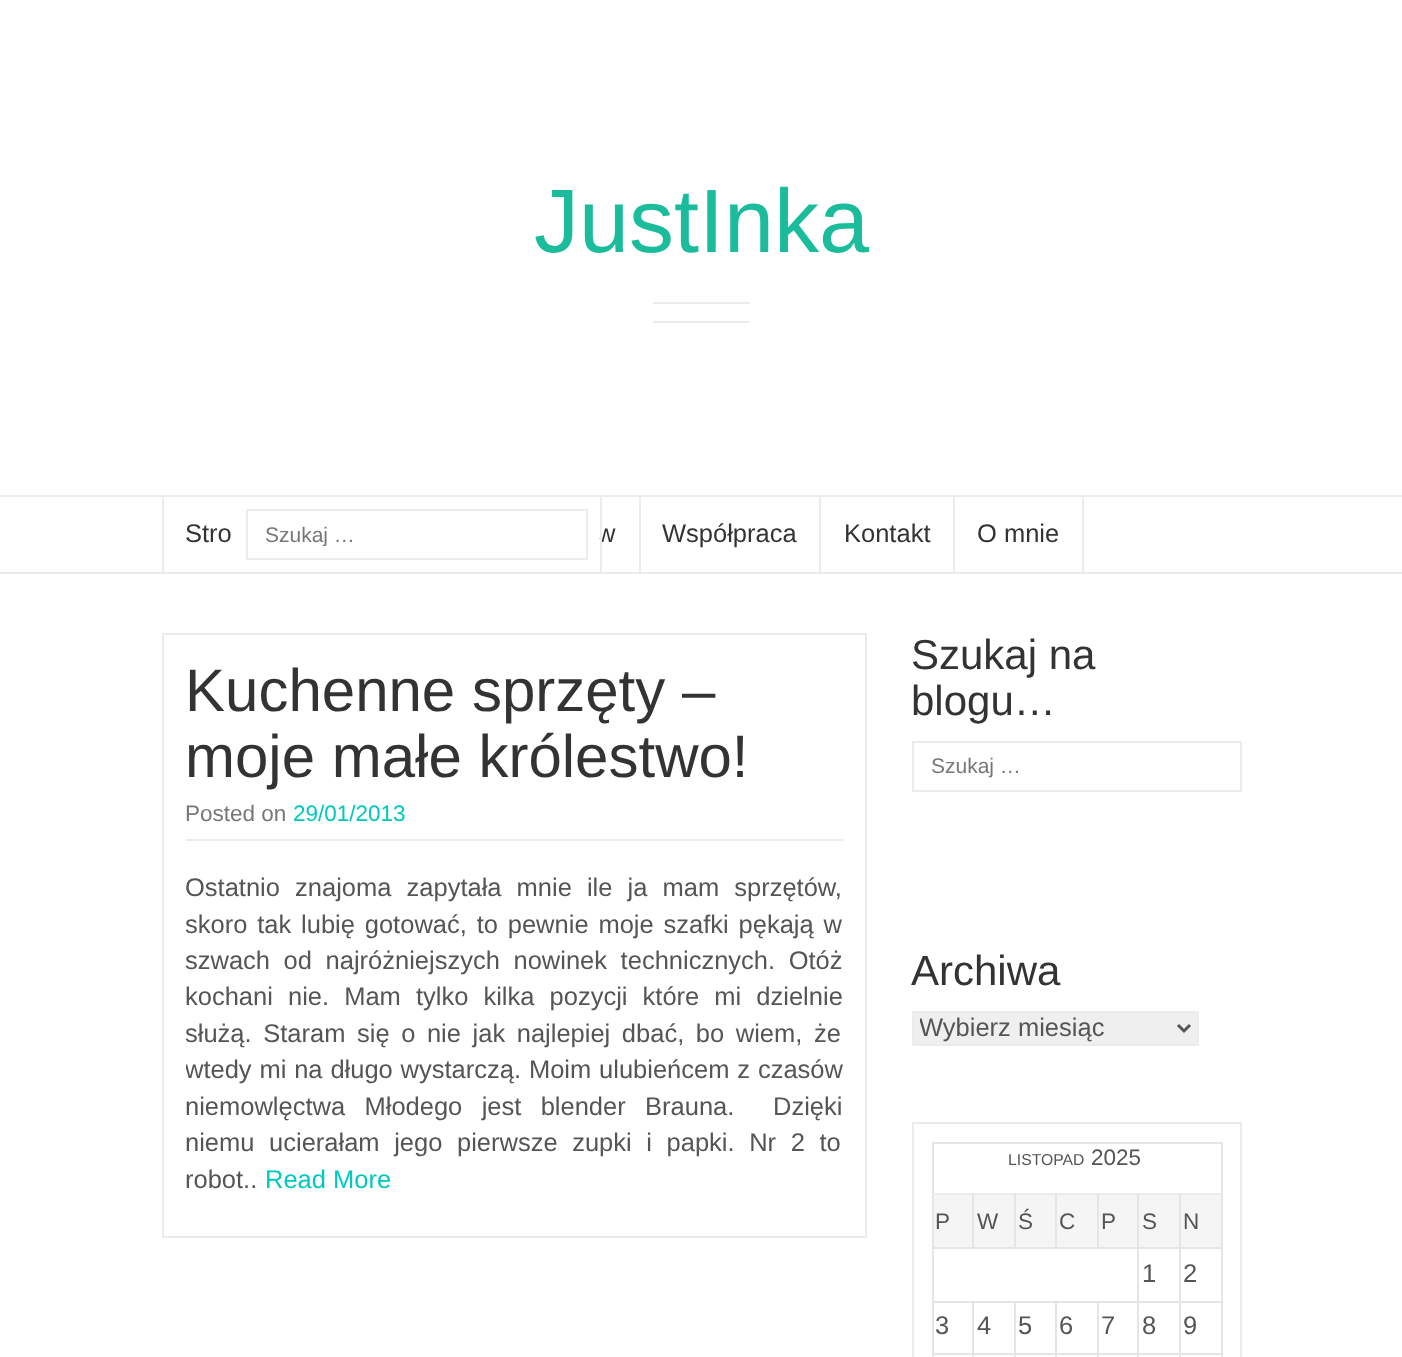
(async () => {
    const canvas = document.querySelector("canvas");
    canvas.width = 1402;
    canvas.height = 1357;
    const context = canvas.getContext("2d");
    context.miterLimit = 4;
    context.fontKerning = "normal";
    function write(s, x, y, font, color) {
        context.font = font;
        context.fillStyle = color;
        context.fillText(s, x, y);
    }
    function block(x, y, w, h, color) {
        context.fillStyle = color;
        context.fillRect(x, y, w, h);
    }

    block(0, 0, 1402, 1357, "rgb(255, 255, 255)");
    write("JustInka", 534, 252, "90px Liberation Sans", "rgb(26, 188, 156)");
    block(653, 302, 97, 2, "rgb(236, 236, 236)");
    block(653, 321, 97, 2, "rgb(236, 236, 236)");
    block(0, 495, 1402, 2, "rgb(236, 236, 236)");
    block(0, 572, 1402, 2, "rgb(236, 236, 236)");
    block(162, 497, 2, 75, "rgb(236, 236, 236)");
    write("Stro", 185, 542, "25.5px Liberation Sans", "rgb(51, 51, 51)");
    write("w", 597, 542, "25.5px Liberation Sans", "rgb(51, 51, 51)");
    block(639, 497, 2, 75, "rgb(236, 236, 236)");
    write("Współpraca", 662, 542, "25.5px Liberation Sans", "rgb(51, 51, 51)");
    block(819, 497, 2, 75, "rgb(236, 236, 236)");
    write("Kontakt", 844, 542, "25.5px Liberation Sans", "rgb(51, 51, 51)");
    block(1082, 497, 2, 75, "rgb(236, 236, 236)");
    block(953, 497, 2, 75, "rgb(236, 236, 236)");
    write("O mnie", 977, 542, "25.5px Liberation Sans", "rgb(51, 51, 51)");
    block(597, 528, 3, 10, "rgb(255, 255, 255)");
    block(600, 497, 2, 75, "rgb(236, 236, 236)");
    context.strokeStyle = "rgb(236, 236, 236)";
    context.lineWidth = 2;
    context.strokeRect(247, 510, 340, 49);
    context.save();
    context.beginPath();
    context.rect(266, 522, 297, 24);
    context.clip();
    write("Szukaj …", 265, 542, "21px Liberation Sans", "rgb(119, 119, 119)");
    context.restore();
    context.strokeRect(163, 634, 703, 603);
    write("Kuchenne sprzęty –", 185, 711, "60px Liberation Sans", "rgb(51, 51, 51)");
    write("moje małe królestwo!", 185, 777, "60px Liberation Sans", "rgb(51, 51, 51)");
    block(186, 839, 657, 2, "rgb(236, 236, 236)");
    write("Posted on", 185, 821, "22.5px Liberation Sans", "rgb(119, 119, 119)");
    write("29/01/2013", 293, 821, "22.5px Liberation Sans", "rgb(0, 201, 191)");
    context.wordSpacing = "8px";
    write("Ostatnio znajoma zapytała mnie ile ja mam sprzętów,", 185, 896, "25.5px Liberation Sans", "rgb(85, 85, 85)");
    context.wordSpacing = "2.75px";
    write("skoro tak lubię gotować, to pewnie moje szafki pękają w", 185, 933, "25.5px Liberation Sans", "rgb(85, 85, 85)");
    context.wordSpacing = "6.5px";
    write("szwach od najróżniejszych nowinek technicznych. Otóż", 185, 969, "25.5px Liberation Sans", "rgb(85, 85, 85)");
    context.wordSpacing = "8px";
    write("kochani nie. Mam tylko kilka pozycji które mi dzielnie", 185, 1005, "25.5px Liberation Sans", "rgb(85, 85, 85)");
    context.wordSpacing = "4.5px";
    write("służą. Staram się o nie jak najlepiej dbać, bo wiem, że", 185, 1042, "25.5px Liberation Sans", "rgb(85, 85, 85)");
    context.save();
    context.beginPath();
    context.rect(186, 870, 657, 344);
    context.clip();
    context.wordSpacing = "0.75px";
    write("wtedy mi na długo wystarczą. Moim ulubieńcem z czasów", 185, 1078, "25.5px Liberation Sans", "rgb(85, 85, 85)");
    context.restore();
    context.wordSpacing = "12.25px";
    write("niemowlęctwa Młodego jest blender Brauna.  Dzięki", 185, 1115, "25.5px Liberation Sans", "rgb(85, 85, 85)");
    context.wordSpacing = "7.5px";
    write("niemu ucierałam jego pierwsze zupki i papki. Nr 2 to", 185, 1151, "25.5px Liberation Sans", "rgb(85, 85, 85)");
    context.wordSpacing = "0px";
    write("robot..", 185, 1188, "25.5px Liberation Sans", "rgb(85, 85, 85)");
    write("Read More", 265, 1188, "25.5px Liberation Sans", "rgb(0, 201, 191)");
    write("Szukaj na", 911, 669, "42px Liberation Sans", "rgb(51, 51, 51)");
    write("blogu…", 911, 715, "42px Liberation Sans", "rgb(51, 51, 51)");
    context.strokeRect(913, 742, 328, 49);
    write("Szukaj …", 931, 773, "21px Liberation Sans", "rgb(119, 119, 119)");
    write("Archiwa", 911, 985, "42px Liberation Sans", "rgb(51, 51, 51)");
    context.fillStyle = "rgb(239, 239, 239)";
    context.beginPath();
    context.rect(913, 1012, 285, 33);
    context.fill();
    context.stroke();
    context.beginPath();
    context.moveTo(1178, 1025);
    context.lineTo(1184, 1031);
    context.lineTo(1190, 1025);
    context.strokeStyle = "rgb(85, 85, 85)";
    context.lineWidth = 3;
    context.stroke();
    context.save();
    context.beginPath();
    context.rect(920, 1013, 253, 31);
    context.clip();
    write("Wybierz miesiąc", 919, 1036, "25.5px Liberation Sans", "rgb(85, 85, 85)");
    context.restore();
    context.strokeStyle = "rgb(236, 236, 236)";
    context.lineWidth = 2;
    context.strokeRect(913, 1123, 328, 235);
    block(932, 1142, 291, 2, "rgb(229, 229, 229)");
    block(1221, 1142, 2, 215, "rgb(229, 229, 229)");
    block(932, 1142, 2, 215, "rgb(229, 229, 229)");
    write("LISTOPAD", 1008, 1165, "15.75px Liberation Sans", "rgb(85, 85, 85)");
    write("2025", 1091, 1165, "22.5px Liberation Sans", "rgb(85, 85, 85)");
    block(932, 1193, 291, 2, "rgb(236, 236, 236)");
    block(934, 1195, 38, 52, "rgb(245, 245, 245)");
    block(1179, 1353, 2, 4, "rgb(229, 229, 229)");
    block(1179, 1353, 44, 2, "rgb(229, 229, 229)");
    block(1179, 1301, 2, 54, "rgb(229, 229, 229)");
    block(1179, 1301, 44, 2, "rgb(229, 229, 229)");
    block(1179, 1247, 2, 55, "rgb(229, 229, 229)");
    block(1179, 1247, 44, 2, "rgb(229, 229, 229)");
    block(1179, 1193, 2, 55, "rgb(229, 229, 229)");
    block(1137, 1353, 2, 4, "rgb(229, 229, 229)");
    block(1137, 1353, 44, 2, "rgb(229, 229, 229)");
    block(1137, 1301, 2, 54, "rgb(229, 229, 229)");
    block(1137, 1301, 44, 2, "rgb(229, 229, 229)");
    block(1137, 1247, 2, 55, "rgb(229, 229, 229)");
    block(1137, 1247, 44, 2, "rgb(229, 229, 229)");
    block(1137, 1193, 2, 55, "rgb(229, 229, 229)");
    block(1097, 1247, 42, 2, "rgb(229, 229, 229)");
    block(1097, 1193, 2, 55, "rgb(229, 229, 229)");
    block(1055, 1247, 43, 2, "rgb(229, 229, 229)");
    block(1055, 1193, 2, 55, "rgb(229, 229, 229)");
    block(1014, 1247, 42, 2, "rgb(229, 229, 229)");
    block(1014, 1193, 2, 55, "rgb(229, 229, 229)");
    block(972, 1247, 44, 2, "rgb(229, 229, 229)");
    block(972, 1193, 2, 55, "rgb(229, 229, 229)");
    block(932, 1247, 42, 2, "rgb(229, 229, 229)");
    write("P", 935, 1229, "22.5px Liberation Sans", "rgb(85, 85, 85)");
    block(974, 1195, 40, 52, "rgb(245, 245, 245)");
    write("W", 977, 1229, "22.5px Liberation Sans", "rgb(85, 85, 85)");
    block(1016, 1195, 39, 52, "rgb(245, 245, 245)");
    write("Ś", 1018, 1229, "22.5px Liberation Sans", "rgb(85, 85, 85)");
    block(1057, 1195, 40, 52, "rgb(245, 245, 245)");
    write("C", 1059, 1229, "22.5px Liberation Sans", "rgb(85, 85, 85)");
    block(1099, 1195, 38, 52, "rgb(245, 245, 245)");
    write("P", 1101, 1229, "22.5px Liberation Sans", "rgb(85, 85, 85)");
    block(1139, 1195, 40, 52, "rgb(245, 245, 245)");
    write("S", 1142, 1229, "22.5px Liberation Sans", "rgb(85, 85, 85)");
    block(1181, 1195, 40, 52, "rgb(245, 245, 245)");
    block(1221, 1193, 2, 2, "rgb(229, 229, 229)");
    write("N", 1183, 1229, "22.5px Liberation Sans", "rgb(85, 85, 85)");
    block(1097, 1353, 2, 4, "rgb(229, 229, 229)");
    block(1097, 1353, 42, 2, "rgb(229, 229, 229)");
    block(1097, 1301, 2, 54, "rgb(229, 229, 229)");
    block(1055, 1353, 2, 4, "rgb(229, 229, 229)");
    block(1055, 1353, 43, 2, "rgb(229, 229, 229)");
    block(1055, 1301, 2, 54, "rgb(229, 229, 229)");
    block(1014, 1353, 2, 4, "rgb(229, 229, 229)");
    block(1014, 1353, 42, 2, "rgb(229, 229, 229)");
    block(1014, 1301, 2, 54, "rgb(229, 229, 229)");
    block(972, 1353, 2, 4, "rgb(229, 229, 229)");
    block(972, 1353, 44, 2, "rgb(229, 229, 229)");
    block(972, 1301, 2, 54, "rgb(229, 229, 229)");
    block(932, 1301, 207, 2, "rgb(229, 229, 229)");
    write("1", 1142, 1282, "25.5px Liberation Sans", "rgb(85, 85, 85)");
    write("2", 1183, 1282, "25.5px Liberation Sans", "rgb(85, 85, 85)");
    block(932, 1353, 42, 2, "rgb(229, 229, 229)");
    write("3", 935, 1334, "25.5px Liberation Sans", "rgb(85, 85, 85)");
    write("4", 977, 1334, "25.5px Liberation Sans", "rgb(85, 85, 85)");
    write("5", 1018, 1334, "25.5px Liberation Sans", "rgb(85, 85, 85)");
    write("6", 1059, 1334, "25.5px Liberation Sans", "rgb(85, 85, 85)");
    write("7", 1101, 1334, "25.5px Liberation Sans", "rgb(85, 85, 85)");
    write("8", 1142, 1334, "25.5px Liberation Sans", "rgb(85, 85, 85)");
    write("9", 1183, 1334, "25.5px Liberation Sans", "rgb(85, 85, 85)");
})();
